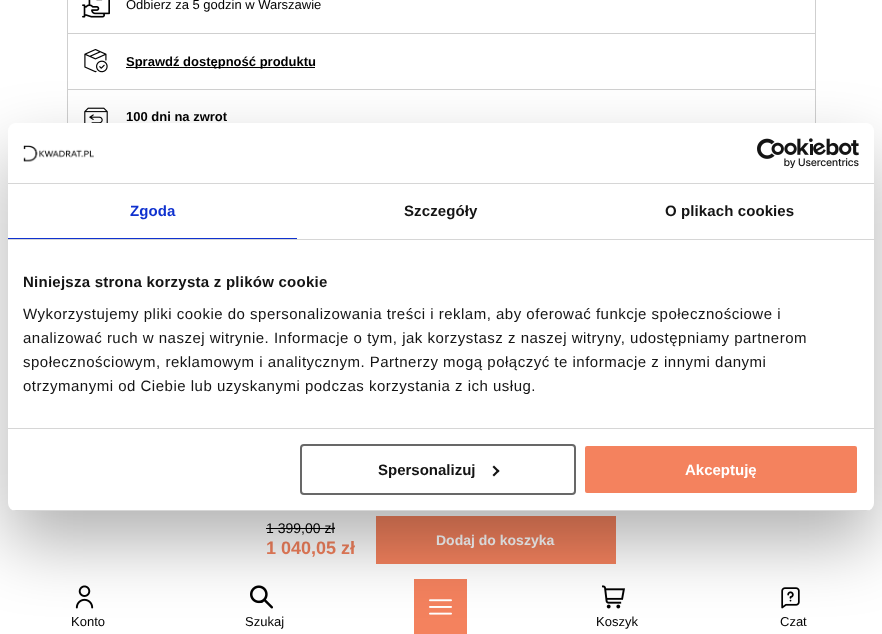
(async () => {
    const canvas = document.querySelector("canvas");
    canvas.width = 882;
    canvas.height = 634;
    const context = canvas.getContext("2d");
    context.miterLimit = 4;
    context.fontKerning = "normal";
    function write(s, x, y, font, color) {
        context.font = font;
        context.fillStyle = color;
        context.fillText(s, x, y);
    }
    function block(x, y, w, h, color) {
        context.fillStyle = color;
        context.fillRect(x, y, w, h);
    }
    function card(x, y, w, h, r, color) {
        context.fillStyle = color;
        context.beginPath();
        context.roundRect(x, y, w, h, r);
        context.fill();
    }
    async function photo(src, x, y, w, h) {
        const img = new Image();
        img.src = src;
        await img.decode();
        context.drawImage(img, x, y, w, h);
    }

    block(0, 0, 882, 634, "rgb(255, 255, 255)");
    block(815, 0, 1, 33, "rgb(207, 207, 207)");
    block(67, 0, 1, 33, "rgb(207, 207, 207)");
    await photo("media/1.png", 82, 0, 28, 18);
    write("Odbierz za 5 godzin w Warszawie", 126, 9, "13px Liberation Sans", "rgb(0, 0, 0)");
    block(67, 33, 749, 1, "rgb(207, 207, 207)");
    block(815, 33, 1, 56, "rgb(207, 207, 207)");
    block(67, 33, 1, 56, "rgb(207, 207, 207)");
    await photo("media/2.png", 84, 49, 24, 24);
    block(126, 67, 189, 1, "rgb(0, 0, 0)");
    write("Sprawdź dostępność produktu", 126, 66, "bold 13px Liberation Sans", "rgb(0, 0, 0)");
    block(67, 89, 749, 1, "rgb(207, 207, 207)");
    block(815, 89, 1, 34, "rgb(207, 207, 207)");
    block(67, 89, 1, 34, "rgb(207, 207, 207)");
    await photo("media/3.png", 84, 107, 24, 16);
    write("100 dni na zwrot", 126, 121, "bold 13px Liberation Sans", "rgb(0, 0, 0)");
    write("1 399,00 zł", 266, 533, "14px Liberation Sans", "rgb(0, 0, 0)");
    block(266, 528, 69, 1, "rgb(0, 0, 0)");
    write("1 040,05 zł", 266, 554, "bold 18px Liberation Sans", "rgb(244, 130, 94)");
    block(376, 516, 240, 48, "rgb(244, 130, 94)");
    write("Dodaj do koszyka", 436, 545, "bold 14px Liberation Sans", "rgb(255, 255, 255)");
    await photo("media/4.png", 75, 585, 19, 24);
    write("Konto", 71, 626, "13px Liberation Sans", "rgb(0, 0, 0)");
    await photo("media/5.png", 250, 585, 23, 24);
    write("Szukaj", 245, 626, "13px Liberation Sans", "rgb(0, 0, 0)");
    block(414, 579, 53, 55, "rgb(244, 130, 94)");
    await photo("media/6.png", 429, 599, 23, 16);
    await photo("media/7.png", 602, 585, 23, 24);
    write("Koszyk", 596, 626, "13px Liberation Sans", "rgb(0, 0, 0)");
    await photo("media/8.png", 781, 587, 19, 22);
    write("Czat", 780, 626, "13px Liberation Sans", "rgb(0, 0, 0)");
    context.fillStyle = "rgba(0, 0, 0, 0.3)";
    context.filter = "blur(34px)";
    context.beginPath();
    context.roundRect(8, 155, 866, 388, 8);
    context.fill();
    context.filter = "none";
    card(8, 123, 866, 388, 8, "rgb(255, 255, 255)");
    block(8, 183, 866, 1, "rgb(214, 214, 214)");
    await photo("media/9.png", 23, 145, 71, 17);
    await photo("media/10.png", 757, 138, 102, 30);
    block(8, 239, 866, 1, "rgb(214, 214, 214)");
    block(8, 238, 289, 1, "rgb(16, 50, 207)");
    context.letterSpacing = "0.1px";
    write("Zgoda", 130, 216, "bold 15px Liberation Sans", "rgb(16, 50, 207)");
    write("Szczegóły", 404, 216, "bold 15px Liberation Sans", "rgb(20, 20, 20)");
    write("O plikach cookies", 665, 216, "bold 15px Liberation Sans", "rgb(20, 20, 20)");
    block(8, 428, 866, 1, "rgb(214, 214, 214)");
    context.letterSpacing = "0.25px";
    write("Niniejsza strona korzysta z plików cookie", 23, 287, "bold 15px Liberation Sans", "rgb(20, 20, 20)");
    context.letterSpacing = "0.5px";
    write("Wykorzystujemy pliki cookie do spersonalizowania treści i reklam, aby oferować funkcje społecznościowe i", 23, 319, "15px Liberation Sans", "rgb(20, 20, 20)");
    write("analizować ruch w naszej witrynie. Informacje o tym, jak korzystasz z naszej witryny, udostępniamy partnerom", 23, 343, "15px Liberation Sans", "rgb(20, 20, 20)");
    write("społecznościowym, reklamowym i analitycznym. Partnerzy mogą połączyć te informacje z innymi danymi", 23, 367, "15px Liberation Sans", "rgb(20, 20, 20)");
    write("otrzymanymi od Ciebie lub uzyskanymi podczas korzystania z ich usług.", 23, 391, "15px Liberation Sans", "rgb(20, 20, 20)");
    context.save();
    context.beginPath();
    context.roundRect(8, 123, 866, 388, 8);
    context.clip();
    block(8, 510, 866, 1, "rgb(214, 214, 214)");
    context.restore();
    context.beginPath();
    context.roundRect(301, 445, 274, 49, 3);
    context.strokeStyle = "rgb(104, 104, 104)";
    context.lineWidth = 2;
    context.stroke();
    context.letterSpacing = "0px";
    write("Spersonalizuj", 378, 475, "bold 15px Liberation Sans", "rgb(20, 20, 20)");
    context.beginPath();
    context.moveTo(494, 465.5);
    context.lineTo(499.5, 471);
    context.lineTo(498, 472.5);
    context.lineTo(492.5, 467);
    context.closePath();
    context.fill();
    context.beginPath();
    context.moveTo(498, 469.5);
    context.lineTo(499.5, 471);
    context.lineTo(494, 476.5);
    context.lineTo(492.5, 475);
    context.closePath();
    context.fill();
    context.fillStyle = "rgb(244, 130, 94)";
    context.beginPath();
    context.roundRect(584, 445, 274, 49, 3);
    context.fill();
    context.strokeStyle = "rgb(255, 255, 255)";
    context.stroke();
    write("Akceptuję", 685, 475, "bold 15px Liberation Sans", "rgb(255, 255, 255)");
})();
